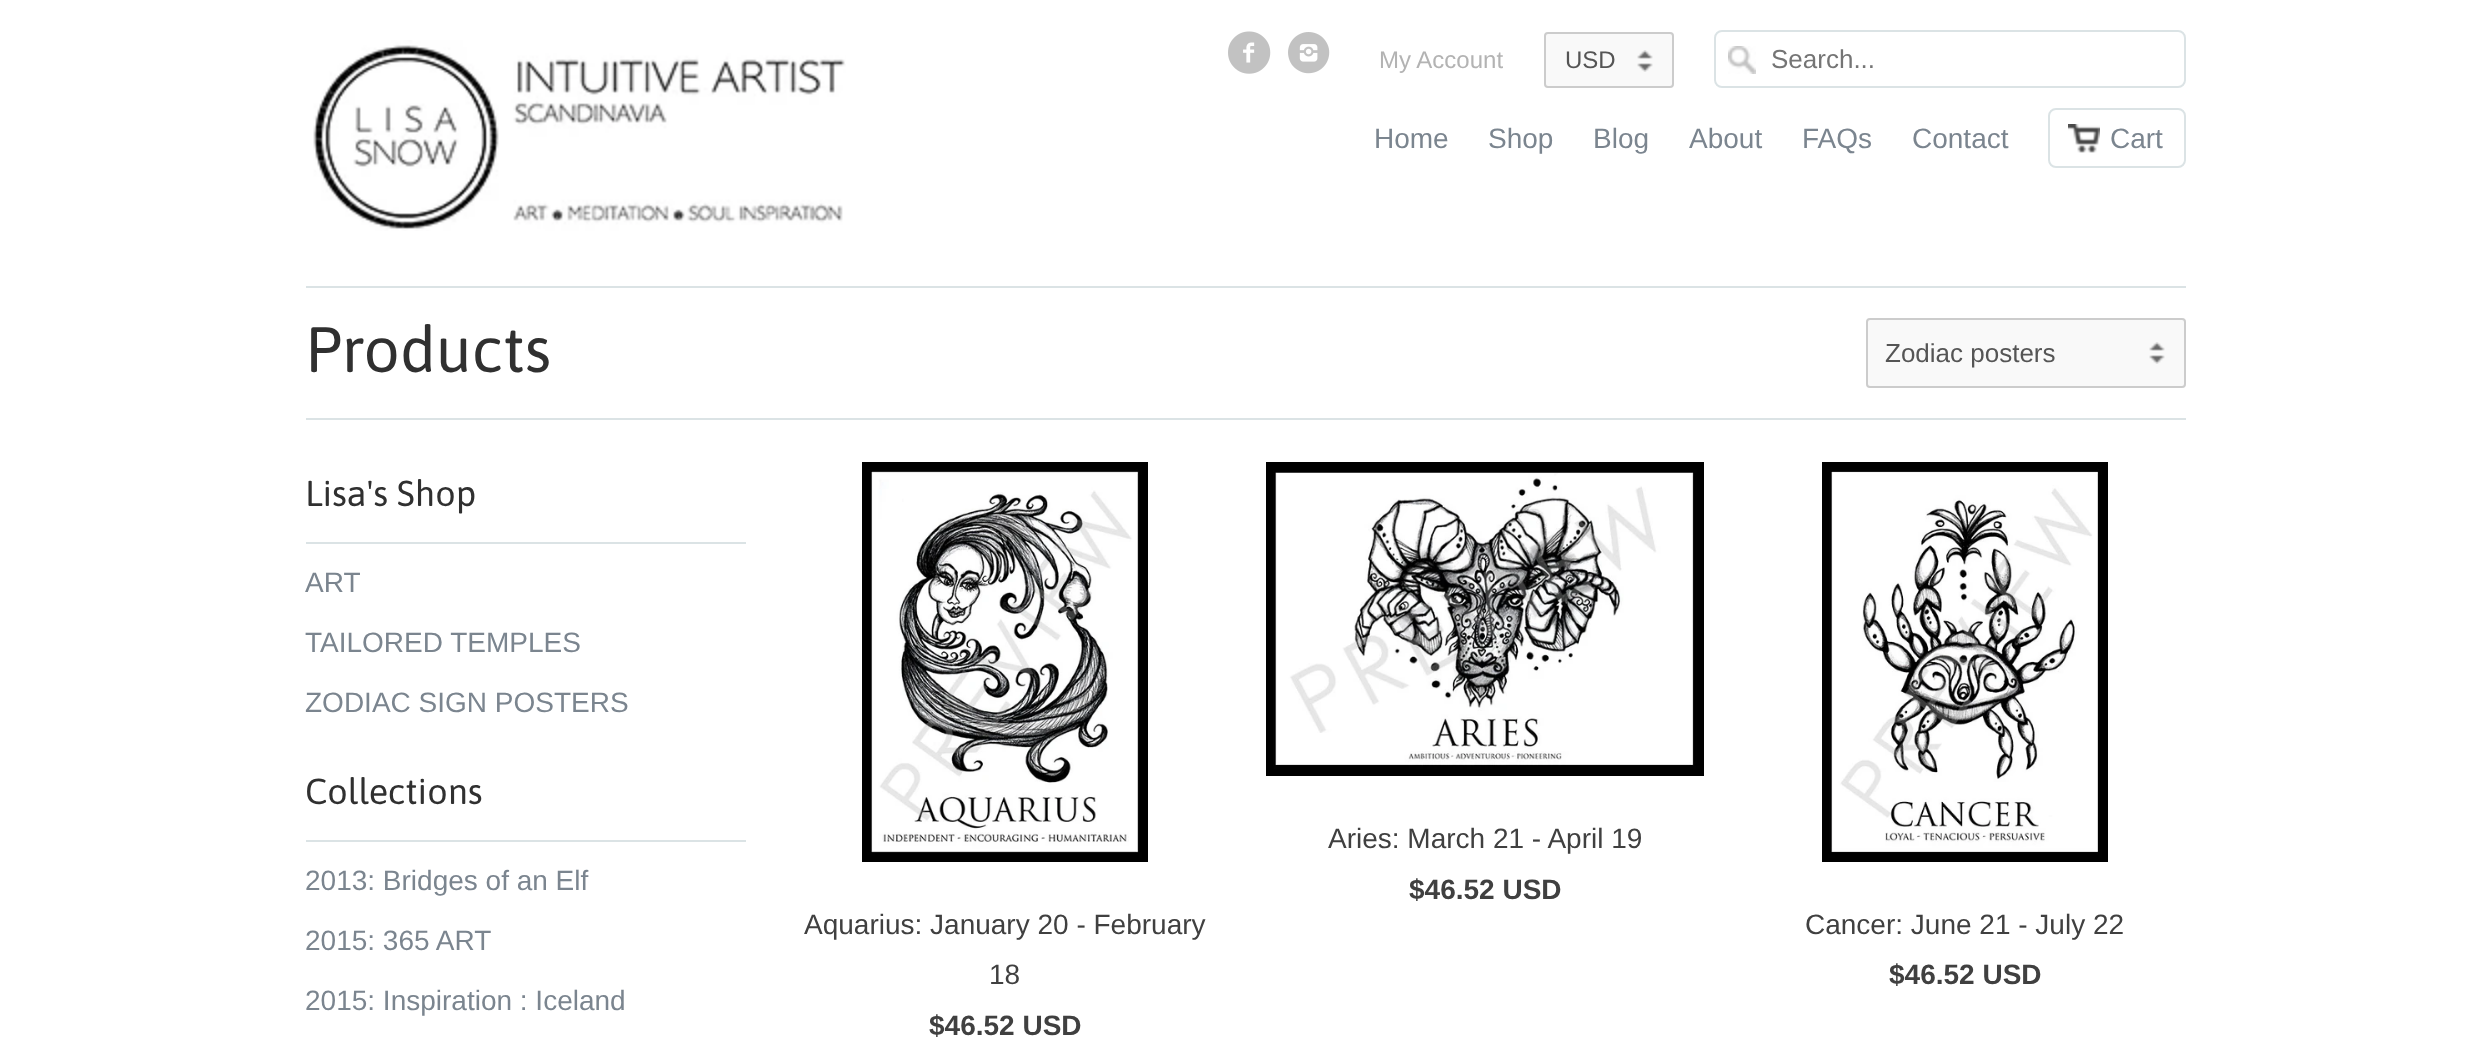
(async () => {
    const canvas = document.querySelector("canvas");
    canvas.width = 2490;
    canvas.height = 1050;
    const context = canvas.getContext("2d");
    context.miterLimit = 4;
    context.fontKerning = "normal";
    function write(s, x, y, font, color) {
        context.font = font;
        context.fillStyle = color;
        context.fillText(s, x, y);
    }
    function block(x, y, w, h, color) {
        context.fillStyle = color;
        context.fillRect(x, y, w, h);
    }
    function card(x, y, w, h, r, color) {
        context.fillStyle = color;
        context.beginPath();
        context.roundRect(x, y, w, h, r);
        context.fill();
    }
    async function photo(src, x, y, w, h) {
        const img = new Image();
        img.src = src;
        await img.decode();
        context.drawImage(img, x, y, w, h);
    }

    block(0, 0, 2490, 1050, "rgb(255, 255, 255)");
    block(306, 286, 1880, 2, "rgb(219, 227, 229)");
    await photo("media/1.png", 313, 40, 533, 191);
    await photo("media/2.png", 1228, 31, 43, 43);
    await photo("media/3.png", 1288, 32, 42, 42);
    write("My Account", 1379, 68, "24px Liberation Sans", "rgb(179, 179, 179)");
    card(1544, 32, 130, 56, 4, "rgb(249, 249, 249)");
    await photo("media/4.png", 1637, 50, 16, 22);
    context.beginPath();
    context.roundRect(1545, 33, 128, 54, 3);
    context.strokeStyle = "rgb(204, 204, 204)";
    context.lineWidth = 2;
    context.stroke();
    write("USD", 1565, 68, "24px Liberation Sans", "rgb(85, 85, 85)");
    await photo("media/5.png", 1728, 46, 28, 28);
    context.beginPath();
    context.roundRect(1715, 31, 470, 56, 7);
    context.strokeStyle = "rgb(219, 227, 229)";
    context.stroke();
    write("Search...", 1771, 68, "26px Liberation Sans", "rgb(117, 117, 117)");
    write("Home", 1374, 148, "28px Liberation Sans", "rgb(123, 133, 143)");
    write("Shop", 1488, 148, "28px Liberation Sans", "rgb(123, 133, 143)");
    write("Blog", 1593, 148, "28px Liberation Sans", "rgb(123, 133, 143)");
    write("About", 1689, 148, "28px Liberation Sans", "rgb(123, 133, 143)");
    write("FAQs", 1802, 148, "28px Liberation Sans", "rgb(123, 133, 143)");
    write("Contact", 1912, 148, "28px Liberation Sans", "rgb(123, 133, 143)");
    await photo("media/6.png", 2068, 124, 32, 29);
    context.beginPath();
    context.roundRect(2049, 109, 136, 58, 7);
    context.stroke();
    write("Cart", 2110, 148, "28px Liberation Sans", "rgb(123, 133, 143)");
    block(306, 418, 1880, 2, "rgb(219, 227, 229)");
    write("Products", 305, 372, "64px Asap", "rgb(48, 48, 48)");
    card(1866, 318, 320, 70, 4, "rgb(249, 249, 249)");
    await photo("media/4.png", 2149, 342, 16, 22);
    context.beginPath();
    context.roundRect(1867, 319, 318, 68, 3);
    context.strokeStyle = "rgb(204, 204, 204)";
    context.stroke();
    write("Zodiac posters", 1885, 362, "26px Liberation Sans", "rgb(85, 85, 85)");
    block(306, 542, 440, 2, "rgb(219, 227, 229)");
    write("Lisa's Shop", 305, 506, "36px Asap", "rgb(48, 48, 48)");
    write("ART", 305, 592, "28px Liberation Sans", "rgb(123, 133, 143)");
    write("TAILORED TEMPLES", 305, 652, "28px Liberation Sans", "rgb(123, 133, 143)");
    write("ZODIAC SIGN POSTERS", 305, 712, "28px Liberation Sans", "rgb(123, 133, 143)");
    block(306, 840, 440, 2, "rgb(219, 227, 229)");
    write("Collections", 305, 804, "36px Asap", "rgb(48, 48, 48)");
    write("2013: Bridges of an Elf", 305, 890, "28px Liberation Sans", "rgb(123, 133, 143)");
    write("2015: 365 ART", 305, 950, "28px Liberation Sans", "rgb(123, 133, 143)");
    write("2015: Inspiration : Iceland", 305, 1010, "28px Liberation Sans", "rgb(123, 133, 143)");
    await photo("media/7.png", 1266, 462, 438, 314);
    write("Aries: March 21 - April 19", 1328, 848, "28px Liberation Sans", "rgb(64, 64, 64)");
    write("$46.52 USD", 1409, 899, "bold 28px Liberation Sans", "rgb(64, 64, 64)");
    await photo("media/8.png", 862, 462, 286, 400);
    write("Aquarius: January 20 - February", 804, 934, "28px Liberation Sans", "rgb(64, 64, 64)");
    write("18", 989, 984, "28px Liberation Sans", "rgb(64, 64, 64)");
    write("$46.52 USD", 929, 1035, "bold 28px Liberation Sans", "rgb(64, 64, 64)");
    await photo("media/9.png", 1822, 462, 286, 400);
    write("Cancer: June 21 - July 22", 1805, 934, "28px Liberation Sans", "rgb(64, 64, 64)");
    write("$46.52 USD", 1889, 984, "bold 28px Liberation Sans", "rgb(64, 64, 64)");
})();
